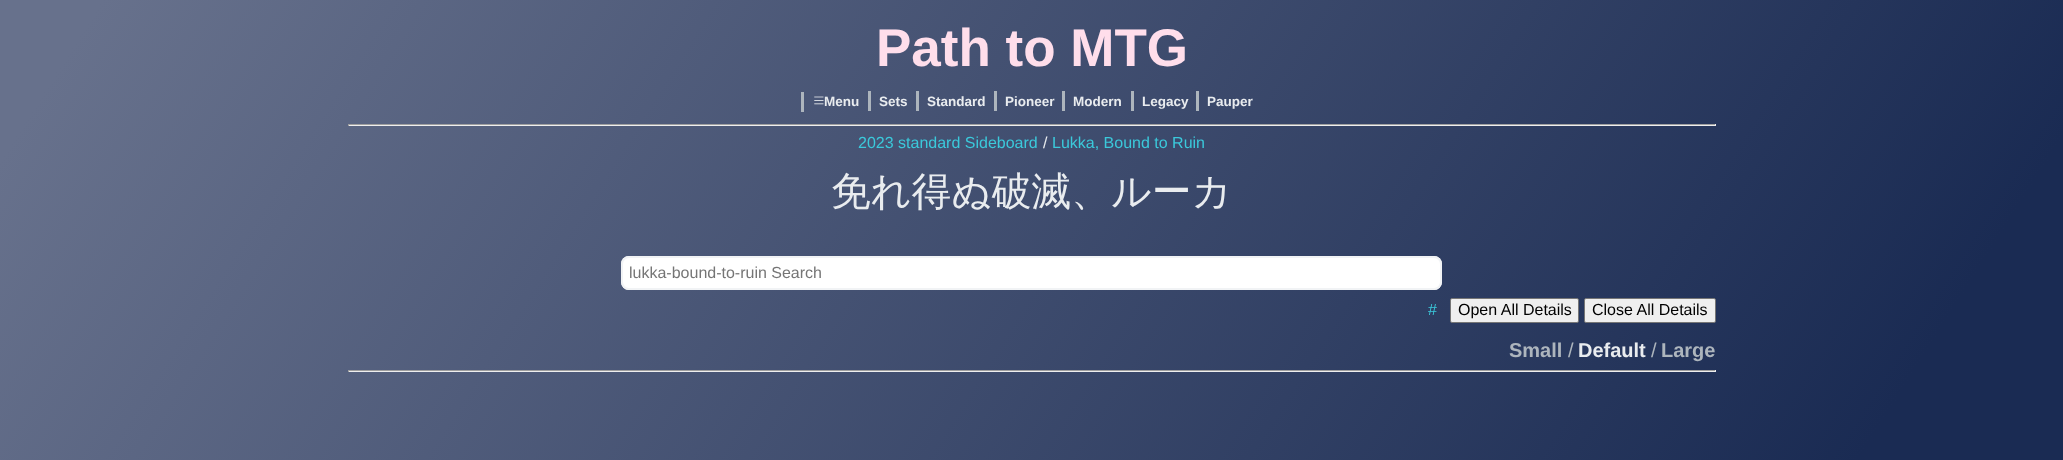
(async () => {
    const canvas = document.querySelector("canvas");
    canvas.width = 2063;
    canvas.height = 460;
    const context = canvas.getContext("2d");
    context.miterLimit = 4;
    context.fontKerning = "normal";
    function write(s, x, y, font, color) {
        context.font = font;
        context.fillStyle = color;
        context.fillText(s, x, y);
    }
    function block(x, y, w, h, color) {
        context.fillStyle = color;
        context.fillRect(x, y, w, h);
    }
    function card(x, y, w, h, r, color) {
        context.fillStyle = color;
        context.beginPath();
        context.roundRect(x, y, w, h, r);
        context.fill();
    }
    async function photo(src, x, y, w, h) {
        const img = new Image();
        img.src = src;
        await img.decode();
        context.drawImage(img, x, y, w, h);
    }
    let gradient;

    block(0, 0, 2063, 460, "rgb(255, 255, 255)");
    gradient = context.createLinearGradient(-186, 293, 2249, 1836);
    gradient.addColorStop(0.03, "rgb(103, 113, 140)");
    gradient.addColorStop(0.63, "rgb(26, 43, 83)");
    context.fillStyle = gradient;
    context.fillRect(0, 0, 2063, 460);
    write("Path to MTG", 876, 66, "bold 53px Liberation Sans", "rgb(255, 222, 235)");
    block(801, 92, 3, 20, "rgb(173, 181, 189)");
    await photo("media/1.png", 814, 96, 10, 9);
    write("Menu", 824, 106, "bold 13.5px Liberation Sans", "rgb(233, 236, 239)");
    write("Sets", 879, 106, "bold 13.5px Liberation Sans", "rgb(233, 236, 239)");
    block(868, 91, 3, 20, "rgb(173, 181, 189)");
    write("Standard", 927, 106, "bold 13.5px Liberation Sans", "rgb(233, 236, 239)");
    block(916, 91, 3, 20, "rgb(173, 181, 189)");
    write("Pioneer", 1005, 106, "bold 13.5px Liberation Sans", "rgb(233, 236, 239)");
    block(994, 91, 3, 20, "rgb(173, 181, 189)");
    write("Modern", 1073, 106, "bold 13.5px Liberation Sans", "rgb(233, 236, 239)");
    block(1062, 91, 3, 20, "rgb(173, 181, 189)");
    write("Legacy", 1142, 106, "bold 13.5px Liberation Sans", "rgb(233, 236, 239)");
    block(1131, 91, 3, 20, "rgb(173, 181, 189)");
    write("Pauper", 1207, 106, "bold 13.5px Liberation Sans", "rgb(233, 236, 239)");
    block(1196, 91, 3, 20, "rgb(173, 181, 189)");
    block(348, 124, 1368, 1, "rgb(159, 159, 159)");
    block(1715, 124, 1, 2, "rgb(238, 238, 238)");
    block(348, 125, 1368, 1, "rgb(238, 238, 238)");
    block(348, 124, 1, 2, "rgb(159, 159, 159)");
    write("2023 standard Sideboard", 858, 148, "16px Liberation Sans", "rgb(59, 201, 219)");
    write("/", 1043, 148, "16px Liberation Sans", "rgb(233, 236, 239)");
    write("Lukka, Bound to Ruin", 1052, 148, "16px Liberation Sans", "rgb(59, 201, 219)");
    write("免れ得ぬ破滅、ルーカ", 831, 205, "500 39.75px WenQuanYi Zen Hei", "rgb(233, 236, 239)");
    card(621, 256, 821, 34, 8, "rgb(255, 255, 255)");
    context.beginPath();
    context.roundRect(622, 257, 819, 32, 7);
    context.strokeStyle = "rgb(241, 243, 245)";
    context.lineWidth = 2;
    context.stroke();
    write("lukka-bound-to-ruin Search", 629, 278, "16px Liberation Sans", "rgb(117, 117, 117)");
    write("#", 1428, 315, "16px Liberation Sans", "rgb(59, 201, 219)");
    context.fillStyle = "rgb(239, 239, 239)";
    context.beginPath();
    context.roundRect(1450.5, 298.5, 128, 24, 1.5);
    context.fill();
    context.strokeStyle = "rgb(118, 118, 118)";
    context.lineWidth = 1;
    context.stroke();
    write("Open All Details", 1458, 315, "16px Liberation Sans", "rgb(0, 0, 0)");
    context.fillStyle = "rgb(239, 239, 239)";
    context.beginPath();
    context.roundRect(1584.5, 298.5, 131, 24, 1.5);
    context.fill();
    context.stroke();
    write("Close All Details", 1592, 315, "16px Liberation Sans", "rgb(0, 0, 0)");
    write("Small", 1509, 357, "bold 20px Liberation Sans", "rgb(173, 181, 189)");
    write("/", 1568, 357, "20px Liberation Sans", "rgb(173, 181, 189)");
    write("Default", 1578, 357, "bold 20px Liberation Sans", "rgb(233, 236, 239)");
    write("/", 1651, 357, "20px Liberation Sans", "rgb(173, 181, 189)");
    write("Large", 1661, 357, "bold 20px Liberation Sans", "rgb(173, 181, 189)");
    block(348, 370, 1368, 1, "rgb(159, 159, 159)");
    block(1715, 370, 1, 2, "rgb(238, 238, 238)");
    block(348, 371, 1368, 1, "rgb(238, 238, 238)");
    block(348, 370, 1, 2, "rgb(159, 159, 159)");
})();
